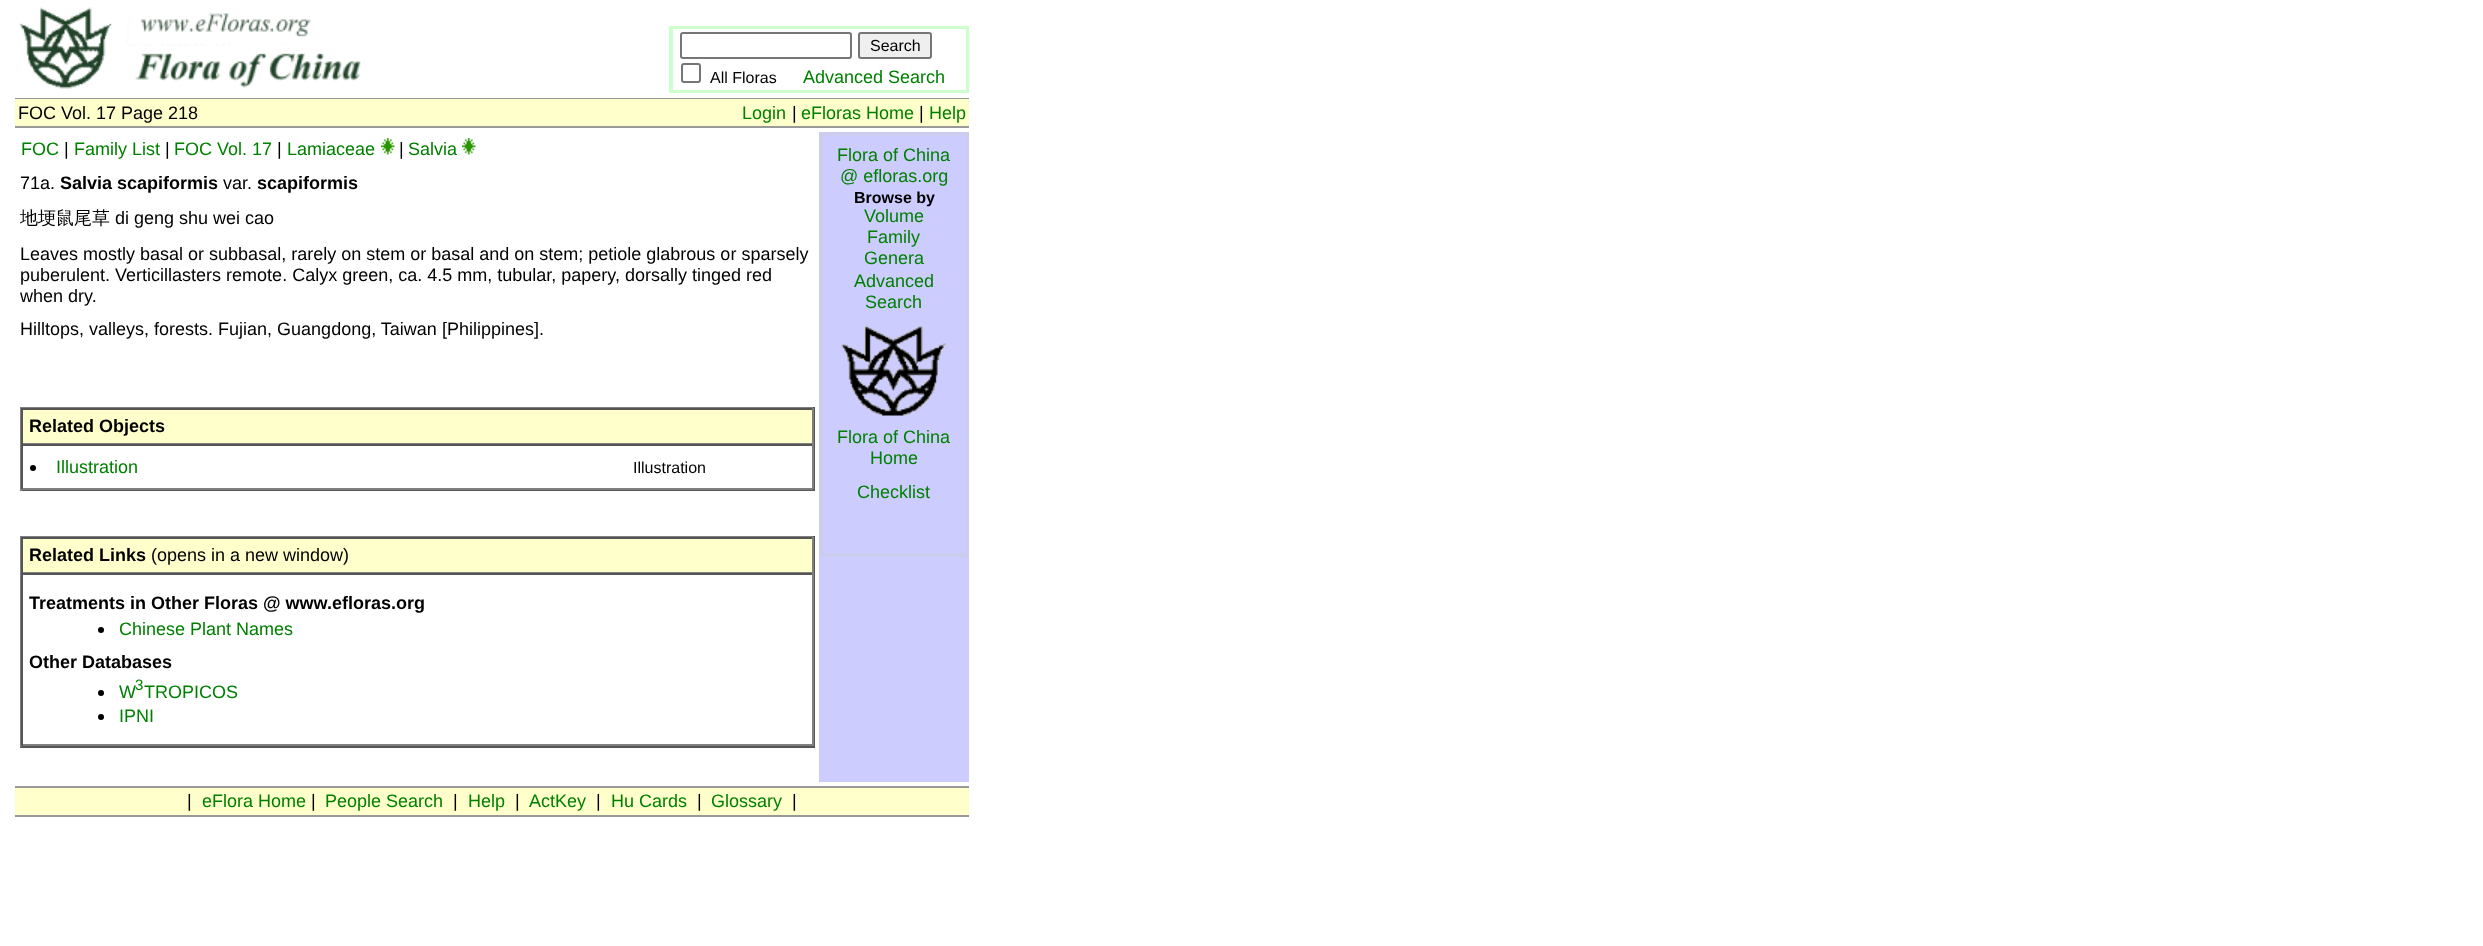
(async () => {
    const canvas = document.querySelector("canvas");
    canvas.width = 2483;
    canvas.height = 946;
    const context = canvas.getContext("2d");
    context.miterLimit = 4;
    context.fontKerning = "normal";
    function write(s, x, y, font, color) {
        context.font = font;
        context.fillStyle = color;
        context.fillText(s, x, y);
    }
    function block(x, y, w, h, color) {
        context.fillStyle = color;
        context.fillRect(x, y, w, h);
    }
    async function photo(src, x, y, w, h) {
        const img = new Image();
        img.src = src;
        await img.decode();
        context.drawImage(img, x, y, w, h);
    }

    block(0, 0, 2483, 946, "rgb(255, 255, 255)");
    await photo("media/1.png", 19, 7, 342, 82);
    context.strokeStyle = "rgb(204, 255, 204)";
    context.lineWidth = 2;
    context.strokeRect(670, 27, 298, 65);
    context.strokeRect(672, 28, 295, 63);
    context.beginPath();
    context.roundRect(681, 33, 170, 25, 2);
    context.strokeStyle = "rgb(118, 118, 118)";
    context.stroke();
    context.fillStyle = "rgb(239, 239, 239)";
    context.beginPath();
    context.roundRect(859, 33, 72, 25, 2);
    context.fill();
    context.stroke();
    write("Search", 870, 51, "16px Liberation Sans", "rgb(0, 0, 0)");
    context.beginPath();
    context.roundRect(682, 64, 18, 18, 2);
    context.stroke();
    write("All Floras", 710, 83, "16px Liberation Sans", "rgb(0, 0, 0)");
    write("Advanced Search", 803, 83, "18px Liberation Sans", "rgb(0, 128, 0)");
    block(15, 98, 954, 1, "rgb(153, 153, 153)");
    block(15, 99, 954, 27, "rgb(255, 255, 204)");
    write("FOC Vol. 17 Page 218", 18, 119, "18px Liberation Sans", "rgb(0, 0, 0)");
    write("Login", 742, 119, "18px Liberation Sans", "rgb(0, 128, 0)");
    write("|", 792, 119, "18px Liberation Sans", "rgb(0, 0, 0)");
    write("eFloras Home", 801, 119, "18px Liberation Sans", "rgb(0, 128, 0)");
    write("|", 919, 119, "18px Liberation Sans", "rgb(0, 0, 0)");
    write("Help", 929, 119, "18px Liberation Sans", "rgb(0, 128, 0)");
    block(15, 126, 954, 2, "rgb(153, 153, 153)");
    write("FOC", 21, 155, "18px Liberation Sans", "rgb(0, 128, 0)");
    write("|", 64, 155, "18px Liberation Sans", "rgb(0, 0, 0)");
    write("Family List", 74, 155, "18px Liberation Sans", "rgb(0, 128, 0)");
    write("|", 165, 155, "18px Liberation Sans", "rgb(0, 0, 0)");
    write("FOC Vol. 17", 174, 155, "18px Liberation Sans", "rgb(0, 128, 0)");
    write("|", 277, 155, "18px Liberation Sans", "rgb(0, 0, 0)");
    write("Lamiaceae", 287, 155, "18px Liberation Sans", "rgb(0, 128, 0)");
    await photo("media/2.png", 381, 138, 14, 17);
    write("|", 399, 155, "18px Liberation Sans", "rgb(0, 0, 0)");
    write("Salvia", 408, 155, "18px Liberation Sans", "rgb(0, 128, 0)");
    await photo("media/2.png", 462, 138, 14, 17);
    write("71a.", 20, 189, "18px Liberation Sans", "rgb(0, 0, 0)");
    write("Salvia scapiformis", 60, 189, "bold 18px Liberation Sans", "rgb(0, 0, 0)");
    write("var.", 223, 189, "18px Liberation Sans", "rgb(0, 0, 0)");
    write("scapiformis", 257, 189, "bold 18px Liberation Sans", "rgb(0, 0, 0)");
    write("地埂鼠尾草", 20, 224, "500 18px WenQuanYi Zen Hei", "rgb(0, 0, 0)");
    write("di geng shu wei cao", 115, 224, "18px Liberation Sans", "rgb(0, 0, 0)");
    write("Leaves mostly basal or subbasal, rarely on stem or basal and on stem; petiole glabrous or sparsely", 20, 260, "18px Liberation Sans", "rgb(0, 0, 0)");
    write("puberulent. Verticillasters remote. Calyx green, ca. 4.5 mm, tubular, papery, dorsally tinged red", 20, 281, "18px Liberation Sans", "rgb(0, 0, 0)");
    write("when dry.", 20, 302, "18px Liberation Sans", "rgb(0, 0, 0)");
    write("Hilltops, valleys, forests. Fujian, Guangdong, Taiwan [Philippines].", 20, 335, "18px Liberation Sans", "rgb(0, 0, 0)");
    block(20, 407, 795, 1, "rgb(128, 128, 128)");
    block(813, 407, 2, 84, "rgb(85, 85, 85)");
    block(20, 489, 795, 2, "rgb(85, 85, 85)");
    block(20, 407, 2, 84, "rgb(128, 128, 128)");
    block(23, 410, 789, 33, "rgb(255, 255, 204)");
    block(21, 408, 792, 2, "rgb(85, 85, 85)");
    block(812, 408, 2, 36, "rgb(128, 128, 128)");
    block(21, 443, 792, 1, "rgb(128, 128, 128)");
    block(21, 408, 2, 36, "rgb(85, 85, 85)");
    write("Related Objects", 29, 432, "bold 18px Liberation Sans", "rgb(0, 0, 0)");
    block(21, 444, 792, 2, "rgb(85, 85, 85)");
    block(812, 444, 2, 45, "rgb(128, 128, 128)");
    block(21, 488, 792, 2, "rgb(128, 128, 128)");
    block(21, 444, 2, 45, "rgb(85, 85, 85)");
    context.fillStyle = "rgb(0, 0, 0)";
    context.beginPath();
    context.arc(33, 468, 3, 0, Math.PI * 2);
    context.fill();
    write("Illustration", 56, 473, "18px Liberation Sans", "rgb(0, 128, 0)");
    write("Illustration", 633, 473, "16px Liberation Sans", "rgb(0, 0, 0)");
    block(20, 536, 795, 1, "rgb(128, 128, 128)");
    block(813, 536, 2, 211, "rgb(85, 85, 85)");
    block(20, 746, 795, 2, "rgb(85, 85, 85)");
    block(20, 536, 2, 211, "rgb(128, 128, 128)");
    block(23, 539, 789, 33, "rgb(255, 255, 204)");
    block(21, 537, 792, 2, "rgb(85, 85, 85)");
    block(812, 537, 2, 36, "rgb(128, 128, 128)");
    block(21, 572, 792, 1, "rgb(128, 128, 128)");
    block(21, 537, 2, 36, "rgb(85, 85, 85)");
    write("Related Links", 29, 561, "bold 18px Liberation Sans", "rgb(0, 0, 0)");
    write("(opens in a new window)", 151, 561, "18px Liberation Sans", "rgb(0, 0, 0)");
    block(21, 573, 792, 2, "rgb(85, 85, 85)");
    block(812, 573, 2, 173, "rgb(128, 128, 128)");
    block(21, 744, 792, 2, "rgb(128, 128, 128)");
    block(21, 573, 2, 173, "rgb(85, 85, 85)");
    write("Treatments in Other Floras @ www.efloras.org", 29, 609, "bold 18px Liberation Sans", "rgb(0, 0, 0)");
    context.beginPath();
    context.arc(101, 630, 3, 0, Math.PI * 2);
    context.fill();
    write("Chinese Plant Names", 119, 635, "18px Liberation Sans", "rgb(0, 128, 0)");
    write("Other Databases", 29, 668, "bold 18px Liberation Sans", "rgb(0, 0, 0)");
    context.beginPath();
    context.arc(101, 693, 3, 0, Math.PI * 2);
    context.fill();
    write("W", 119, 698, "18px Liberation Sans", "rgb(0, 128, 0)");
    write("3", 135, 690, "15px Liberation Sans", "rgb(0, 128, 0)");
    write("TROPICOS", 144, 698, "18px Liberation Sans", "rgb(0, 128, 0)");
    context.fillStyle = "rgb(0, 0, 0)";
    context.beginPath();
    context.arc(101, 717, 3, 0, Math.PI * 2);
    context.fill();
    write("IPNI", 119, 722, "18px Liberation Sans", "rgb(0, 128, 0)");
    block(819, 136, 150, 646, "rgb(204, 204, 255)");
    context.strokeStyle = "rgb(204, 204, 238)";
    context.strokeRect(820, 133, 148, 423);
    context.strokeRect(822, 135, 145, 419);
    write("Flora of China", 837, 161, "18px Liberation Sans", "rgb(0, 128, 0)");
    write("@ efloras.org", 840, 182, "18px Liberation Sans", "rgb(0, 128, 0)");
    write("Browse by", 854, 203, "bold 16px Liberation Sans", "rgb(0, 0, 0)");
    write("Volume", 864, 222, "18px Liberation Sans", "rgb(0, 128, 0)");
    write("Family", 867, 243, "18px Liberation Sans", "rgb(0, 128, 0)");
    write("Genera", 864, 264, "18px Liberation Sans", "rgb(0, 128, 0)");
    write("Advanced", 854, 287, "18px Liberation Sans", "rgb(0, 128, 0)");
    write("Search", 865, 308, "18px Liberation Sans", "rgb(0, 128, 0)");
    await photo("media/3.png", 841, 325, 106, 91);
    write("Flora of China", 837, 443, "18px Liberation Sans", "rgb(0, 128, 0)");
    write("Home", 870, 464, "18px Liberation Sans", "rgb(0, 128, 0)");
    write("Checklist", 857, 498, "18px Liberation Sans", "rgb(0, 128, 0)");
    block(15, 786, 954, 2, "rgb(153, 153, 153)");
    block(15, 788, 954, 27, "rgb(255, 255, 204)");
    write("|", 187, 807, "18px Liberation Sans", "rgb(0, 0, 0)");
    write("eFlora Home", 202, 807, "18px Liberation Sans", "rgb(0, 128, 0)");
    write("|", 311, 807, "18px Liberation Sans", "rgb(0, 0, 0)");
    write("People Search", 325, 807, "18px Liberation Sans", "rgb(0, 128, 0)");
    write("|", 453, 807, "18px Liberation Sans", "rgb(0, 0, 0)");
    write("Help", 468, 807, "18px Liberation Sans", "rgb(0, 128, 0)");
    write("|", 515, 807, "18px Liberation Sans", "rgb(0, 0, 0)");
    write("ActKey", 529, 807, "18px Liberation Sans", "rgb(0, 128, 0)");
    write("|", 596, 807, "18px Liberation Sans", "rgb(0, 0, 0)");
    write("Hu Cards", 611, 807, "18px Liberation Sans", "rgb(0, 128, 0)");
    write("|", 697, 807, "18px Liberation Sans", "rgb(0, 0, 0)");
    write("Glossary", 711, 807, "18px Liberation Sans", "rgb(0, 128, 0)");
    write("|", 792, 807, "18px Liberation Sans", "rgb(0, 0, 0)");
    block(15, 815, 954, 2, "rgb(153, 153, 153)");
})();
